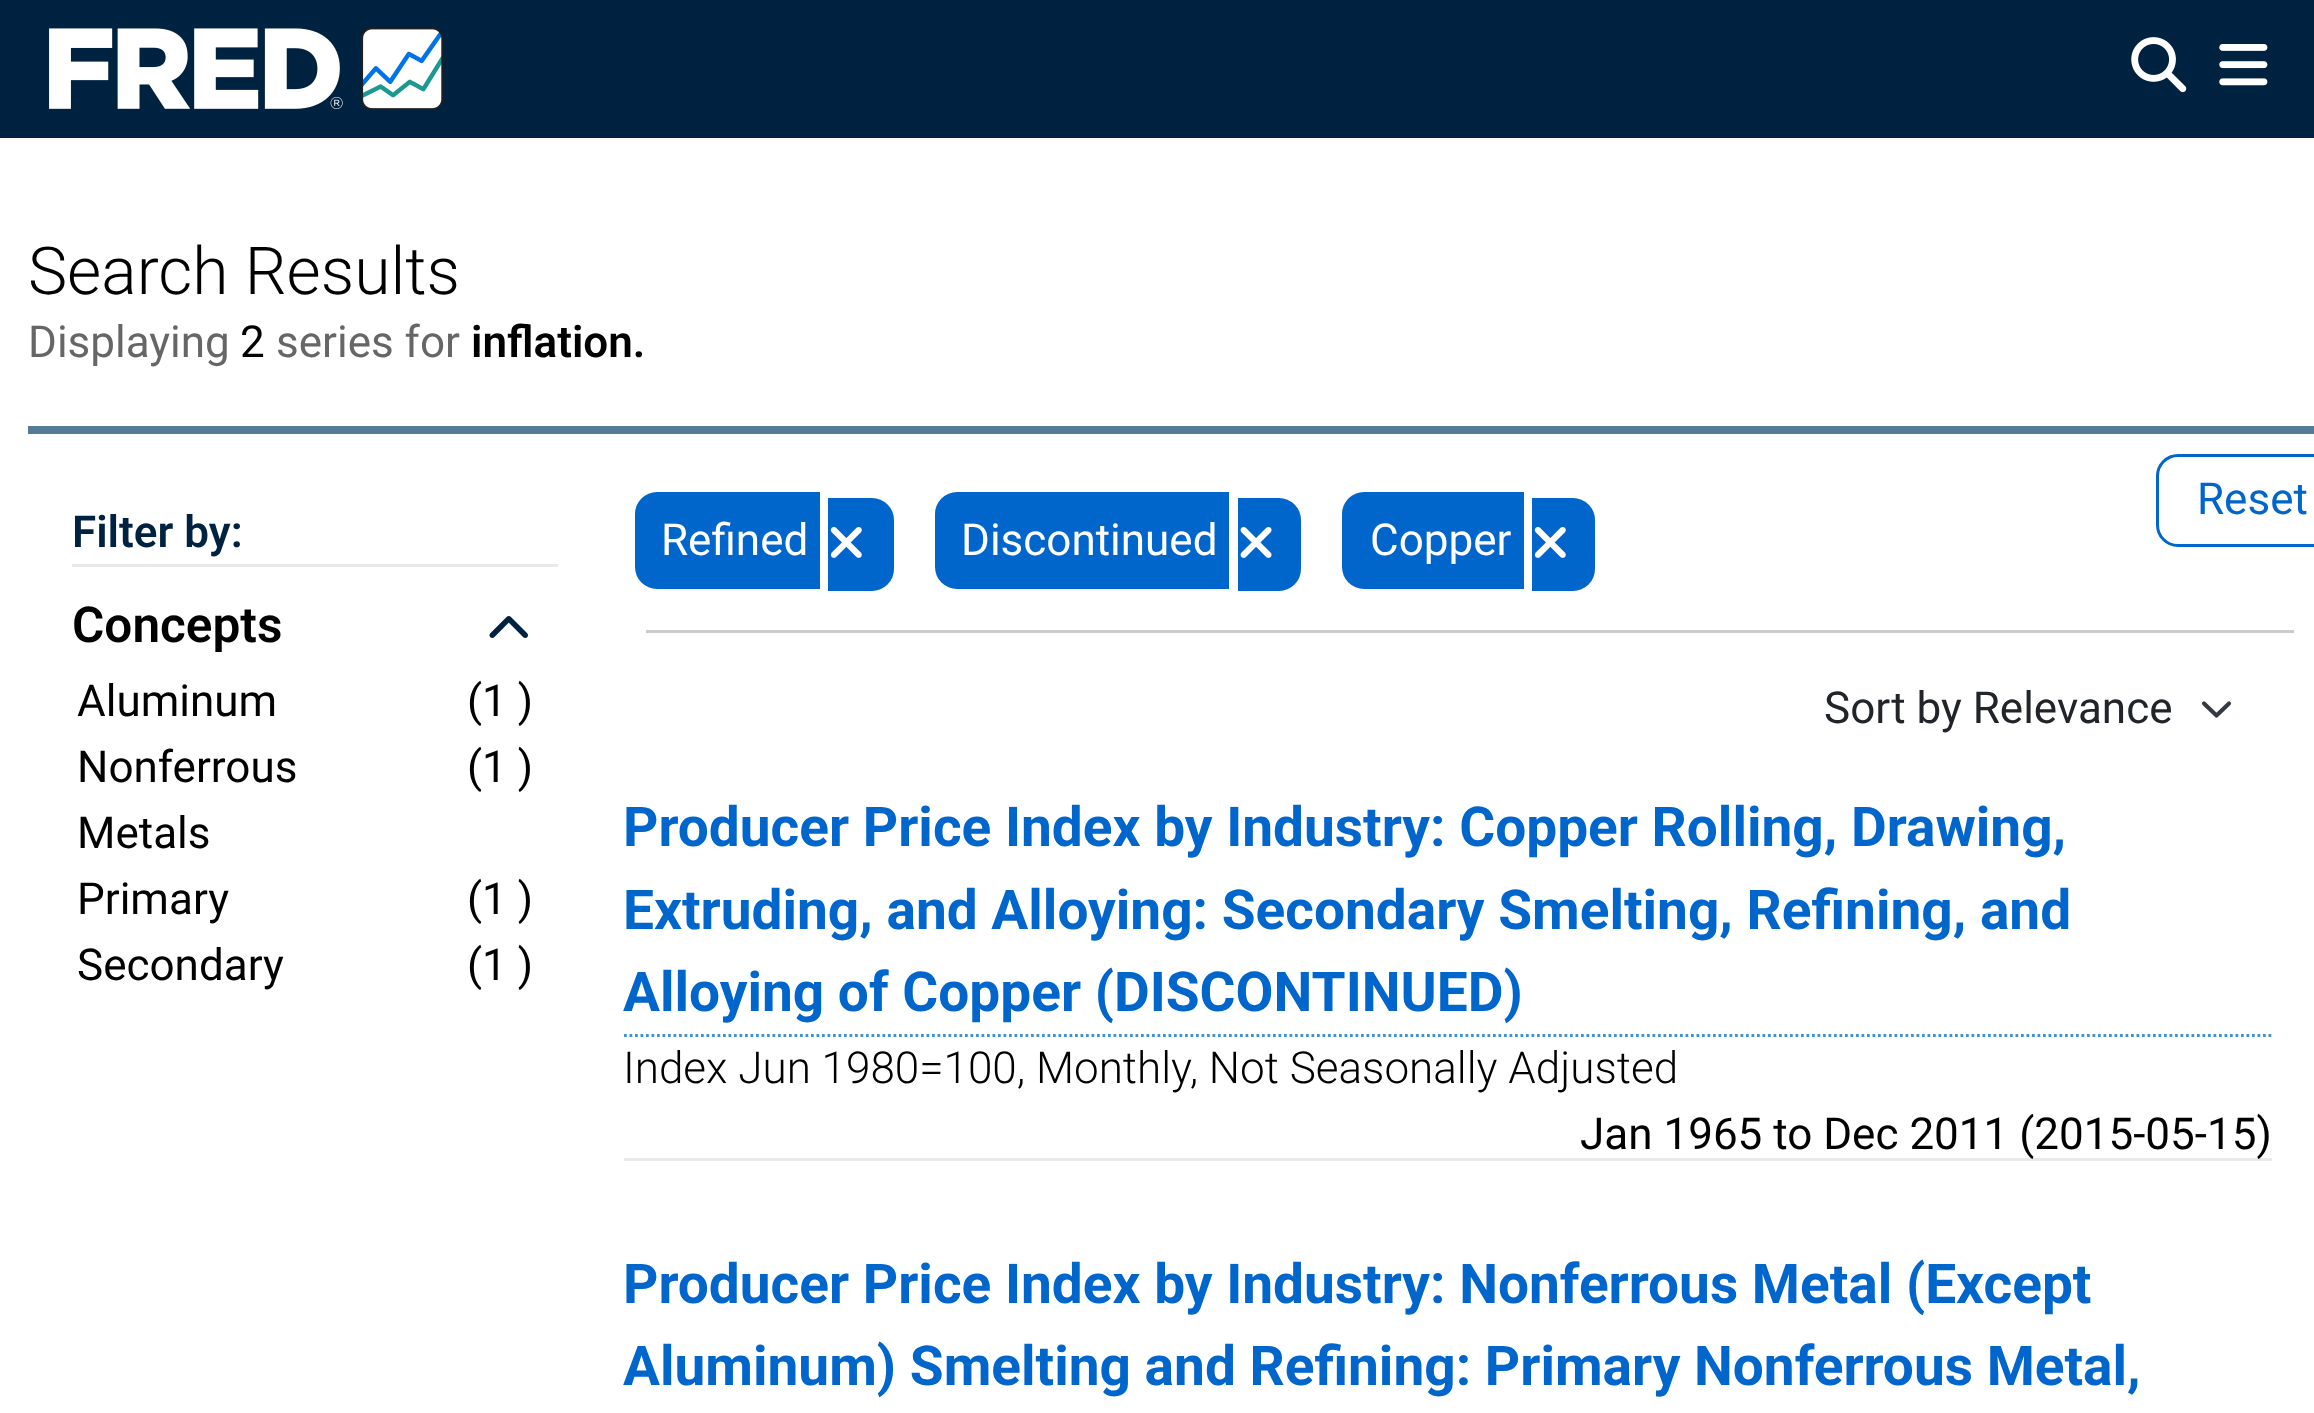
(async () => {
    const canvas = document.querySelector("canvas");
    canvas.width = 2314;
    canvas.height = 1413;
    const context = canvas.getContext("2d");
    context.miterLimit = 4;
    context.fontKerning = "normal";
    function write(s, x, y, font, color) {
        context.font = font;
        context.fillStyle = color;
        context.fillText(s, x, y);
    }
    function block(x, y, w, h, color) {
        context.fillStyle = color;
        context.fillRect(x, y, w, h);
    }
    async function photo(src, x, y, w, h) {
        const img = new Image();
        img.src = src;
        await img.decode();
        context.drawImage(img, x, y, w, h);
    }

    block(0, 0, 2314, 1413, "rgb(255, 255, 255)");
    block(0, 0, 2314, 138, "rgb(0, 34, 65)");
    await photo("media/1.png", 49, 28, 395, 82);
    await photo("media/2.png", 2131, 37, 56, 56);
    await photo("media/3.png", 2219, 44, 49, 42);
    write("Search Results", 28, 294, "300 66px Roboto", "rgb(0, 0, 0)");
    write("Displaying", 28, 357, "44px Roboto", "rgb(102, 102, 102)");
    write("2", 240, 357, "44px Roboto", "rgb(0, 0, 0)");
    write("series for", 276, 357, "44px Roboto", "rgb(102, 102, 102)");
    write("inflation.", 471, 357, "600 44px Roboto", "rgb(0, 0, 0)");
    block(28, 426, 2286, 8, "rgb(85, 123, 151)");
    write("Filter by:", 72, 547, "600 44px Roboto", "rgb(0, 34, 65)");
    block(72, 564, 486, 3, "rgb(233, 233, 233)");
    write("Concepts", 72, 642, "600 49.5px Roboto", "rgb(0, 0, 0)");
    await photo("media/4.png", 489, 616, 39, 22);
    write("Aluminum", 77, 716, "44px Roboto", "rgb(0, 0, 0)");
    write("(1 )", 467, 716, "44px Roboto", "rgb(0, 0, 0)");
    write("Nonferrous", 77, 782, "44px Roboto", "rgb(0, 0, 0)");
    write("Metals", 77, 848, "44px Roboto", "rgb(0, 0, 0)");
    write("(1 )", 467, 782, "44px Roboto", "rgb(0, 0, 0)");
    write("Primary", 77, 914, "44px Roboto", "rgb(0, 0, 0)");
    write("(1 )", 467, 914, "44px Roboto", "rgb(0, 0, 0)");
    write("Secondary", 77, 980, "44px Roboto", "rgb(0, 0, 0)");
    write("(1 )", 467, 980, "44px Roboto", "rgb(0, 0, 0)");
    block(646, 630, 1648, 3, "rgb(204, 204, 204)");
    context.beginPath();
    context.roundRect(2157.5, 455.5, 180, 90, 20.5);
    context.strokeStyle = "rgb(0, 102, 204)";
    context.lineWidth = 3;
    context.stroke();
    write("Reset", 2197, 514, "44px Roboto", "rgb(0, 102, 204)");
    context.beginPath();
    context.roundRect(635, 492, 174, 97, [22, 0, 0, 22]);
    context.fill();
    block(809, 492, 11, 97, "rgb(0, 102, 204)");
    context.beginPath();
    context.roundRect(828, 498, 66, 93, [0, 22, 22, 0]);
    context.fill();
    write("Refined", 661, 555, "44px Roboto", "rgb(255, 255, 255)");
    await photo("media/5.png", 830, 527, 32, 31);
    context.fillStyle = "rgb(0, 102, 204)";
    context.beginPath();
    context.roundRect(935, 492, 283, 97, [22, 0, 0, 22]);
    context.fill();
    block(1218, 492, 11, 97, "rgb(0, 102, 204)");
    context.beginPath();
    context.roundRect(1238, 498, 63, 93, [0, 22, 22, 0]);
    context.fill();
    write("Discontinued", 961, 555, "44px Roboto", "rgb(255, 255, 255)");
    await photo("media/6.png", 1240, 527, 32, 31);
    context.fillStyle = "rgb(0, 102, 204)";
    context.beginPath();
    context.roundRect(1342, 492, 171, 97, [22, 0, 0, 22]);
    context.fill();
    block(1513, 492, 11, 97, "rgb(0, 102, 204)");
    context.beginPath();
    context.roundRect(1532, 498, 63, 93, [0, 22, 22, 0]);
    context.fill();
    write("Copper", 1370, 555, "44px Roboto", "rgb(255, 255, 255)");
    await photo("media/5.png", 1534, 527, 32, 31);
    context.beginPath();
    context.moveTo(2204, 703.5);
    context.lineTo(2216.5, 715.5);
    context.lineTo(2229, 703.5);
    context.strokeStyle = "rgb(52, 58, 64)";
    context.lineWidth = 4.1;
    context.lineCap = "round";
    context.lineJoin = "round";
    context.stroke();
    write("Sort by Relevance", 1824, 723, "44px Roboto", "rgb(33, 37, 41)");
    block(624, 1158, 1648, 3, "rgb(233, 233, 233)");
    context.beginPath();
    context.moveTo(624, 1035.5);
    context.lineTo(2271.5, 1035.5);
    context.strokeStyle = "rgb(60, 146, 213)";
    context.lineWidth = 2.8;
    context.lineCap = "butt";
    context.lineJoin = "miter";
    context.setLineDash([2.75, 2.75]);
    context.stroke();
    write("Producer Price Index by Industry: Copper Rolling, Drawing,", 623, 846, "bold 55px Roboto", "rgb(0, 102, 204)");
    write("Extruding, and Alloying: Secondary Smelting, Refining, and", 623, 929, "bold 55px Roboto", "rgb(0, 102, 204)");
    write("Alloying of Copper (DISCONTINUED)", 623, 1011, "bold 55px Roboto", "rgb(0, 102, 204)");
    write("Index Jun 1980=100, Monthly, Not Seasonally Adjusted", 623, 1083, "300 44px Roboto", "rgb(0, 0, 0)");
    write("Jan 1965 to Dec 2011 (2015-05-15)", 1580, 1149, "44px Roboto", "rgb(0, 0, 0)");
    write("Producer Price Index by Industry: Nonferrous Metal (Except", 623, 1303, "bold 55px Roboto", "rgb(0, 102, 204)");
    write("Aluminum) Smelting and Refining: Primary Nonferrous Metal,", 623, 1385, "bold 55px Roboto", "rgb(0, 102, 204)");
})();
